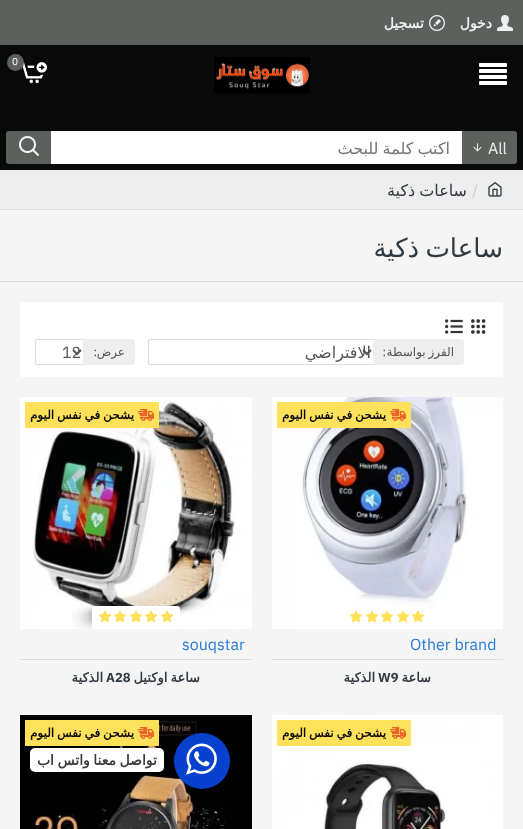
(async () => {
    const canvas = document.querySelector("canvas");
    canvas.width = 523;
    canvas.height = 829;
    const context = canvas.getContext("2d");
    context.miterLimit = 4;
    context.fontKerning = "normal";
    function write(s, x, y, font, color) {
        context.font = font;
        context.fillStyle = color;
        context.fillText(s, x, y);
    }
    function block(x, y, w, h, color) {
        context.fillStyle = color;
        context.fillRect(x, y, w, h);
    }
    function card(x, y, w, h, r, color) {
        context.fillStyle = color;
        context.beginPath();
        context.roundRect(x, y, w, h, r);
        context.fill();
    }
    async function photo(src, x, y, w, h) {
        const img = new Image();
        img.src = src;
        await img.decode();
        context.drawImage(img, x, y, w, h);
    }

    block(0, 0, 523, 829, "rgb(245, 245, 245)");
    block(0, 0, 523, 45, "rgb(92, 97, 93)");
    await photo("media/1.png", 497, 15, 16, 16);
    context.direction = "rtl";
    write("دخول", 492, 28, "bold 14px DejaVu Sans", "rgb(238, 238, 238)");
    await photo("media/2.png", 429, 15, 16, 16);
    write("تسجيل", 424, 28, "bold 14px DejaVu Sans", "rgb(238, 238, 238)");
    block(0, 45, 523, 125, "rgb(9, 9, 9)");
    await photo("media/3.png", 479, 63, 28, 22);
    await photo("media/4.png", 214, 57, 96, 37);
    await photo("media/5.png", 22, 62, 25, 22);
    context.fillStyle = "rgb(92, 97, 93)";
    context.beginPath();
    context.arc(15.5, 62.5, 8.5, 0, Math.PI * 2);
    context.fill();
    context.direction = "ltr";
    write("0", 12, 65, "10px IBM Plex Sans", "rgb(255, 255, 255)");
    context.fillStyle = "rgb(92, 97, 93)";
    context.beginPath();
    context.roundRect(462, 131, 55, 33, [0, 3, 3, 0]);
    context.fill();
    write("All", 488, 154, "16px IBM Plex Sans", "rgb(238, 238, 238)");
    await photo("media/6.png", 473, 143, 9, 9);
    block(51, 131, 411, 33, "rgb(255, 255, 255)");
    context.save();
    context.beginPath();
    context.rect(63, 138, 387, 20);
    context.clip();
    context.wordSpacing = "-1px";
    context.direction = "rtl";
    write("اكتب كلمة للبحث", 450, 154, "16px DejaVu Sans", "rgb(117, 117, 117)");
    context.restore();
    context.fillStyle = "rgb(92, 97, 93)";
    context.beginPath();
    context.roundRect(6, 131, 45, 33, [3, 0, 0, 3]);
    context.fill();
    await photo("media/7.png", 19, 136, 20, 20);
    block(0, 170, 523, 39, "rgb(238, 238, 238)");
    block(0, 209, 523, 1, "rgb(221, 221, 221)");
    await photo("media/8.png", 488, 182, 14, 15);
    write("/", 472, 196, "16px IBM Plex Sans", "rgb(204, 204, 204)");
    context.wordSpacing = "-1px";
    context.direction = "rtl";
    write("ساعات ذكية", 467, 196, "16px DejaVu Sans", "rgb(48, 56, 65)");
    block(0, 281, 523, 1, "rgb(221, 221, 221)");
    context.wordSpacing = "-2px";
    write("ساعات ذكية", 503, 257, "26px DejaVu Sans", "rgb(48, 56, 65)");
    card(20, 302, 483, 75, 2, "rgb(255, 255, 255)");
    await photo("media/9.png", 471, 319, 15, 15);
    await photo("media/10.png", 445, 319, 18, 15);
    context.beginPath();
    context.roundRect(148.5, 339.5, 227, 25, 1.5);
    context.strokeStyle = "rgb(221, 221, 221)";
    context.stroke();
    card(373, 339, 91, 26, 3, "rgb(238, 238, 238)");
    context.wordSpacing = "-1px";
    write("الفرز بواسطة", 454, 356, "12px DejaVu Sans", "rgb(85, 85, 85)");
    context.wordSpacing = "0px";
    write(":", 386, 356, "12px IBM Plex Sans", "rgb(85, 85, 85)");
    context.beginPath();
    context.moveTo(363, 350);
    context.lineTo(367, 354);
    context.lineTo(371, 350);
    context.strokeStyle = "rgb(85, 85, 85)";
    context.lineWidth = 2;
    context.stroke();
    write("الافتراضي", 371, 358, "16px DejaVu Sans", "rgb(85, 85, 85)");
    context.beginPath();
    context.roundRect(35.5, 339.5, 50, 25, 1.5);
    context.strokeStyle = "rgb(221, 221, 221)";
    context.lineWidth = 1;
    context.stroke();
    card(83, 339, 52, 26, 3, "rgb(238, 238, 238)");
    write("عرض", 125, 356, "12px DejaVu Sans", "rgb(85, 85, 85)");
    write(":", 97, 356, "12px IBM Plex Sans", "rgb(85, 85, 85)");
    context.beginPath();
    context.moveTo(73, 350);
    context.lineTo(77, 354);
    context.lineTo(81, 350);
    context.strokeStyle = "rgb(85, 85, 85)";
    context.lineWidth = 2;
    context.stroke();
    context.direction = "ltr";
    write("12", 62, 358, "16px IBM Plex Sans", "rgb(85, 85, 85)");
    await photo("media/11.png", 272, 397, 231, 232);
    block(277, 402, 134, 26, "rgb(254, 225, 91)");
    await photo("media/12.png", 390, 409, 16, 12);
    context.wordSpacing = "-1px";
    context.direction = "rtl";
    write("يشحن في نفس اليوم", 386, 419, "bold 12px DejaVu Sans", "rgb(9, 9, 9)");
    context.fillStyle = "rgb(255, 255, 255)";
    context.beginPath();
    context.roundRect(343, 606, 88, 23, [3, 3, 0, 0]);
    context.fill();
    await photo("media/13.png", 412, 610, 12, 13);
    await photo("media/14.png", 412, 610, 12, 13);
    await photo("media/13.png", 397, 610, 12, 13);
    await photo("media/14.png", 397, 610, 12, 13);
    await photo("media/13.png", 381, 610, 12, 13);
    await photo("media/14.png", 381, 610, 12, 13);
    await photo("media/13.png", 366, 610, 12, 13);
    await photo("media/14.png", 366, 610, 12, 13);
    await photo("media/13.png", 350, 610, 12, 13);
    await photo("media/14.png", 350, 610, 12, 13);
    block(272, 659, 231, 1, "rgb(221, 221, 221)");
    context.wordSpacing = "0px";
    context.direction = "ltr";
    write("Other brand", 410, 650, "16px IBM Plex Sans", "rgb(39, 124, 217)");
    context.direction = "rtl";
    write("ساعة", 431, 682, "bold 13px DejaVu Sans", "rgb(48, 56, 65)");
    context.direction = "ltr";
    write("W9", 378, 682, "bold 13px IBM Plex Sans", "rgb(48, 56, 65)");
    context.direction = "rtl";
    write("الذكية", 375, 682, "bold 13px DejaVu Sans", "rgb(48, 56, 65)");
    await photo("media/15.png", 20, 397, 232, 232);
    block(25, 402, 134, 26, "rgb(254, 225, 91)");
    await photo("media/12.png", 138, 409, 16, 12);
    context.wordSpacing = "-1px";
    write("يشحن في نفس اليوم", 134, 419, "bold 12px DejaVu Sans", "rgb(9, 9, 9)");
    context.fillStyle = "rgb(255, 255, 255)";
    context.beginPath();
    context.roundRect(92, 606, 88, 23, [3, 3, 0, 0]);
    context.fill();
    await photo("media/13.png", 161, 610, 12, 13);
    await photo("media/14.png", 161, 610, 12, 13);
    await photo("media/13.png", 145, 610, 12, 13);
    await photo("media/14.png", 145, 610, 12, 13);
    await photo("media/13.png", 130, 610, 12, 13);
    await photo("media/14.png", 130, 610, 12, 13);
    await photo("media/13.png", 114, 610, 12, 13);
    await photo("media/14.png", 114, 610, 12, 13);
    await photo("media/13.png", 99, 610, 12, 13);
    await photo("media/14.png", 99, 610, 12, 13);
    block(20, 659, 232, 1, "rgb(221, 221, 221)");
    context.wordSpacing = "0px";
    context.direction = "ltr";
    write("souqstar", 182, 650, "16px IBM Plex Sans", "rgb(39, 124, 217)");
    context.wordSpacing = "-1px";
    context.direction = "rtl";
    write("ساعة اوكتيل", 200, 682, "bold 13px DejaVu Sans", "rgb(48, 56, 65)");
    context.wordSpacing = "0px";
    context.direction = "ltr";
    write("A28", 106, 682, "bold 13px IBM Plex Sans", "rgb(48, 56, 65)");
    context.direction = "rtl";
    write("الذكية", 103, 682, "bold 13px DejaVu Sans", "rgb(48, 56, 65)");
    await photo("media/16.png", 272, 715, 231, 114);
    block(277, 720, 134, 26, "rgb(254, 225, 91)");
    await photo("media/12.png", 390, 727, 16, 12);
    context.wordSpacing = "-1px";
    write("يشحن في نفس اليوم", 386, 737, "bold 12px DejaVu Sans", "rgb(9, 9, 9)");
    await photo("media/17.png", 20, 715, 232, 114);
    block(25, 720, 134, 26, "rgb(254, 225, 91)");
    await photo("media/12.png", 138, 727, 16, 12);
    write("يشحن في نفس اليوم", 134, 737, "bold 12px DejaVu Sans", "rgb(9, 9, 9)");
    context.fillStyle = "rgb(8, 65, 206)";
    context.beginPath();
    context.arc(202, 761, 28, 0, Math.PI * 2);
    context.fill();
    await photo("media/18.png", 186, 743, 31, 32);
    card(30, 748, 134, 24, 5, "rgb(255, 255, 255)");
    write("تواصل معنا واتس اب", 157, 765, "bold 14px DejaVu Sans", "rgb(60, 60, 60)");
})();
